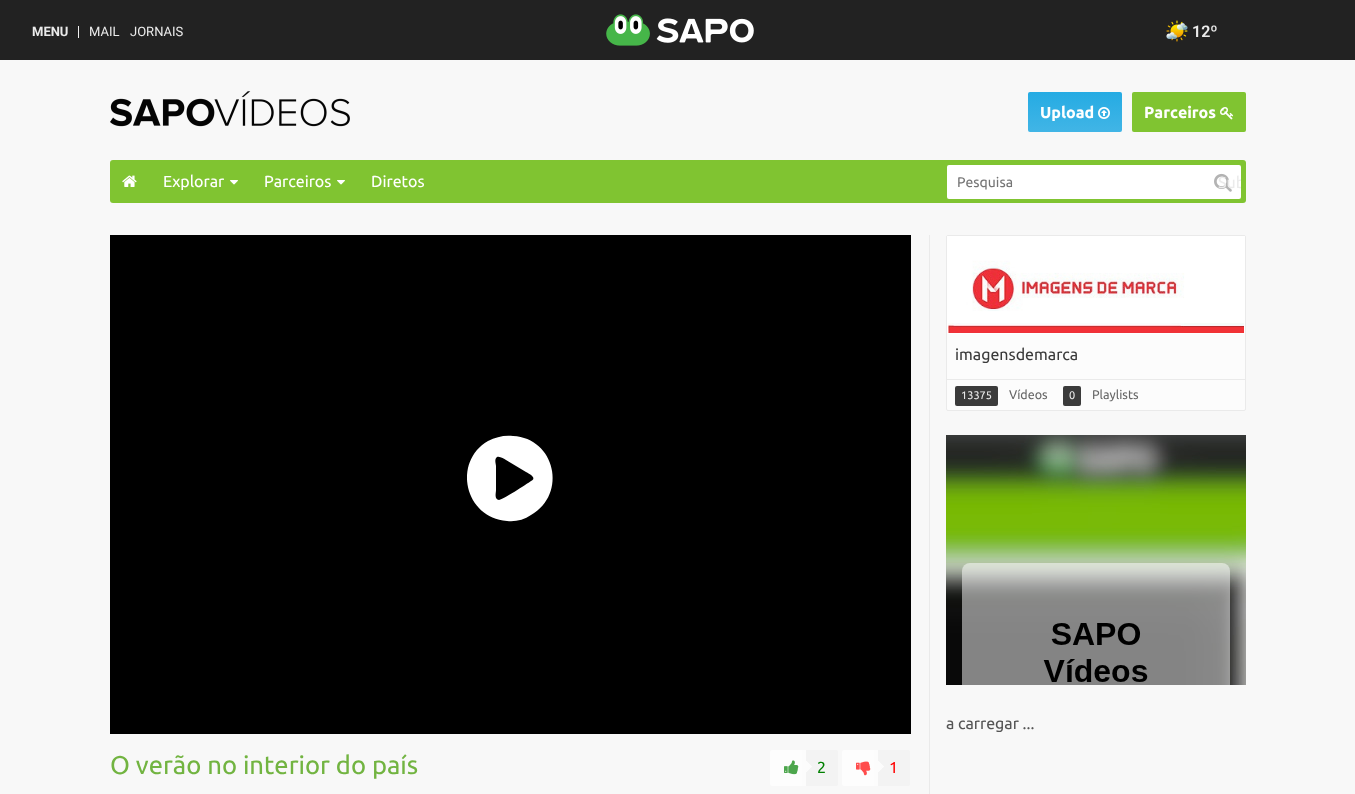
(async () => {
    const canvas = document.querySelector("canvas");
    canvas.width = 1355;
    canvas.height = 794;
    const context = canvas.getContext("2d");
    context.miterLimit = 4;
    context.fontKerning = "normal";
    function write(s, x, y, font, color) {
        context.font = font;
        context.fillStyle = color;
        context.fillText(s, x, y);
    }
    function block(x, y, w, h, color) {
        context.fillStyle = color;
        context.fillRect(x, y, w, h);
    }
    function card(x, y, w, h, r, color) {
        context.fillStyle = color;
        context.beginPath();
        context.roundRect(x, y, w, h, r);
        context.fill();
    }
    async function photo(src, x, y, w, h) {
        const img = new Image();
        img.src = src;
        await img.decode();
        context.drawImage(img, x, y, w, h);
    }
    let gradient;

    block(0, 0, 1355, 794, "rgb(248, 248, 248)");
    block(0, 0, 1355, 60, "rgb(34, 34, 34)");
    write("MENU", 32, 36, "bold 13px Roboto", "rgb(235, 235, 235)");
    block(78, 26, 1, 12, "rgb(240, 240, 240)");
    write("MAIL", 89, 36, "13px Roboto", "rgb(235, 235, 235)");
    write("JORNAIS", 130, 36, "13px Roboto", "rgb(235, 235, 235)");
    await photo("media/1.png", 606, 14, 148, 32);
    await photo("media/2.png", 1166, 20, 22, 22);
    write("12º", 1192, 37, "600 16px Roboto", "rgb(235, 235, 235)");
    await photo("media/3.png", 110, 91, 240, 36);
    gradient = context.createLinearGradient(1075, 92, 1075, 132);
    gradient.addColorStop(0, "rgb(37, 171, 227)");
    gradient.addColorStop(1, "rgb(65, 181, 230)");
    context.fillStyle = gradient;
    context.beginPath();
    context.roundRect(1028, 92, 94, 40, 2);
    context.fill();
    write("Upload", 1040, 118, "bold 16px Ubuntu", "rgb(255, 255, 255)");
    await photo("media/4.png", 1098, 107, 12, 12);
    card(1132, 92, 114, 40, 2, "rgb(128, 196, 49)");
    write("Parceiros", 1144, 118, "bold 16px Ubuntu", "rgb(255, 255, 255)");
    await photo("media/5.png", 1220, 107, 14, 13);
    card(110, 160, 1136, 43, 3, "rgb(128, 196, 49)");
    await photo("media/6.png", 122, 175, 15, 12);
    write("Explorar", 163, 187, "16px Ubuntu", "rgb(255, 255, 255)");
    await photo("media/7.png", 230, 180, 8, 5);
    write("Parceiros", 264, 187, "16px Ubuntu", "rgb(255, 255, 255)");
    await photo("media/7.png", 337, 180, 8, 5);
    write("Diretos", 371, 187, "16px Ubuntu", "rgb(255, 255, 255)");
    card(947, 165, 294, 34, 2, "rgb(255, 255, 255)");
    await photo("media/8.png", 1214, 173, 18, 19);
    write("Pesquisa", 957, 187, "14px Ubuntu", "rgb(117, 117, 117)");
    context.save();
    context.beginPath();
    context.rect(1212, 165, 29, 34);
    context.clip();
    write("Sub", 1218, 188, "16px Ubuntu", "rgb(235, 235, 235)");
    context.restore();
    block(929, 235, 1, 559, "rgb(234, 234, 234)");
    context.fillStyle = "rgb(252, 252, 252)";
    context.beginPath();
    context.roundRect(946.5, 235.5, 299, 175, 1.5);
    context.fill();
    context.strokeStyle = "rgb(234, 234, 234)";
    context.stroke();
    await photo("media/9.png", 948, 236, 296, 97);
    block(1244, 236, 1, 98, "rgb(255, 255, 255)");
    block(947, 333, 298, 1, "rgb(255, 255, 255)");
    block(947, 236, 1, 98, "rgb(255, 255, 255)");
    write("imagensdemarca", 955, 360, "16px Ubuntu", "rgb(59, 59, 59)");
    block(947, 379, 298, 1, "rgb(234, 234, 234)");
    card(955, 386, 43, 20, 2, "rgb(59, 59, 59)");
    write("13375", 961, 399, "11px Ubuntu", "rgb(235, 235, 235)");
    write("Vídeos", 1009, 399, "12.5px Ubuntu", "rgb(102, 102, 102)");
    card(1063, 386, 18, 20, 2, "rgb(59, 59, 59)");
    write("0", 1069, 399, "11px Ubuntu", "rgb(235, 235, 235)");
    write("Playlists", 1092, 399, "12.5px Ubuntu", "rgb(102, 102, 102)");
    await photo("media/10.png", 946, 435, 300, 250);
    write("a carregar ...", 946, 729, "16px Ubuntu", "rgb(85, 85, 85)");
    block(110, 235, 801, 499, "rgb(0, 0, 0)");
    context.fillStyle = "rgb(255, 255, 255)";
    context.beginPath();
    context.moveTo(488, 441);
    context.bezierCurveTo(496, 437, 504, 435, 513, 436);
    context.bezierCurveTo(555, 438, 568, 494, 531, 515);
    context.bezierCurveTo(524, 520, 515, 522, 507, 521);
    context.bezierCurveTo(465, 518, 452, 462, 488, 441);
    context.closePath();
    context.moveTo(531, 481);
    context.bezierCurveTo(538, 478, 528, 473, 526, 472);
    context.lineTo(506, 460);
    context.bezierCurveTo(504, 459, 500, 456, 497, 457);
    context.bezierCurveTo(494, 459, 496, 464, 496, 466);
    context.lineTo(496, 490);
    context.bezierCurveTo(496, 493, 494, 499, 499, 500);
    context.bezierCurveTo(502, 500, 527, 484, 531, 481);
    context.closePath();
    context.fill();
    write("O verão no interior do país", 110, 774, "25.6px Ubuntu", "rgb(114, 180, 65)");
    context.fillStyle = "rgb(243, 243, 243)";
    context.beginPath();
    context.roundRect(802, 750, 36, 36, [0, 2, 2, 0]);
    context.fill();
    context.fillStyle = "rgba(255, 255, 255, 0.7)";
    context.beginPath();
    context.roundRect(770, 750, 36, 36, [2, 0, 0, 2]);
    context.fill();
    await photo("media/11.png", 784, 760, 15, 15);
    await photo("media/12.png", 806, 761, 6, 11);
    write("2", 817, 773, "16px Ubuntu", "rgb(0, 128, 0)");
    context.fillStyle = "rgb(243, 243, 243)";
    context.beginPath();
    context.roundRect(874, 750, 36, 36, [0, 2, 2, 0]);
    context.fill();
    context.fillStyle = "rgba(255, 255, 255, 0.7)";
    context.beginPath();
    context.roundRect(842, 750, 36, 36, [2, 0, 0, 2]);
    context.fill();
    await photo("media/13.png", 856, 761, 15, 15);
    await photo("media/12.png", 878, 761, 6, 11);
    write("1", 889, 773, "16px Ubuntu", "rgb(255, 0, 0)");
})();
